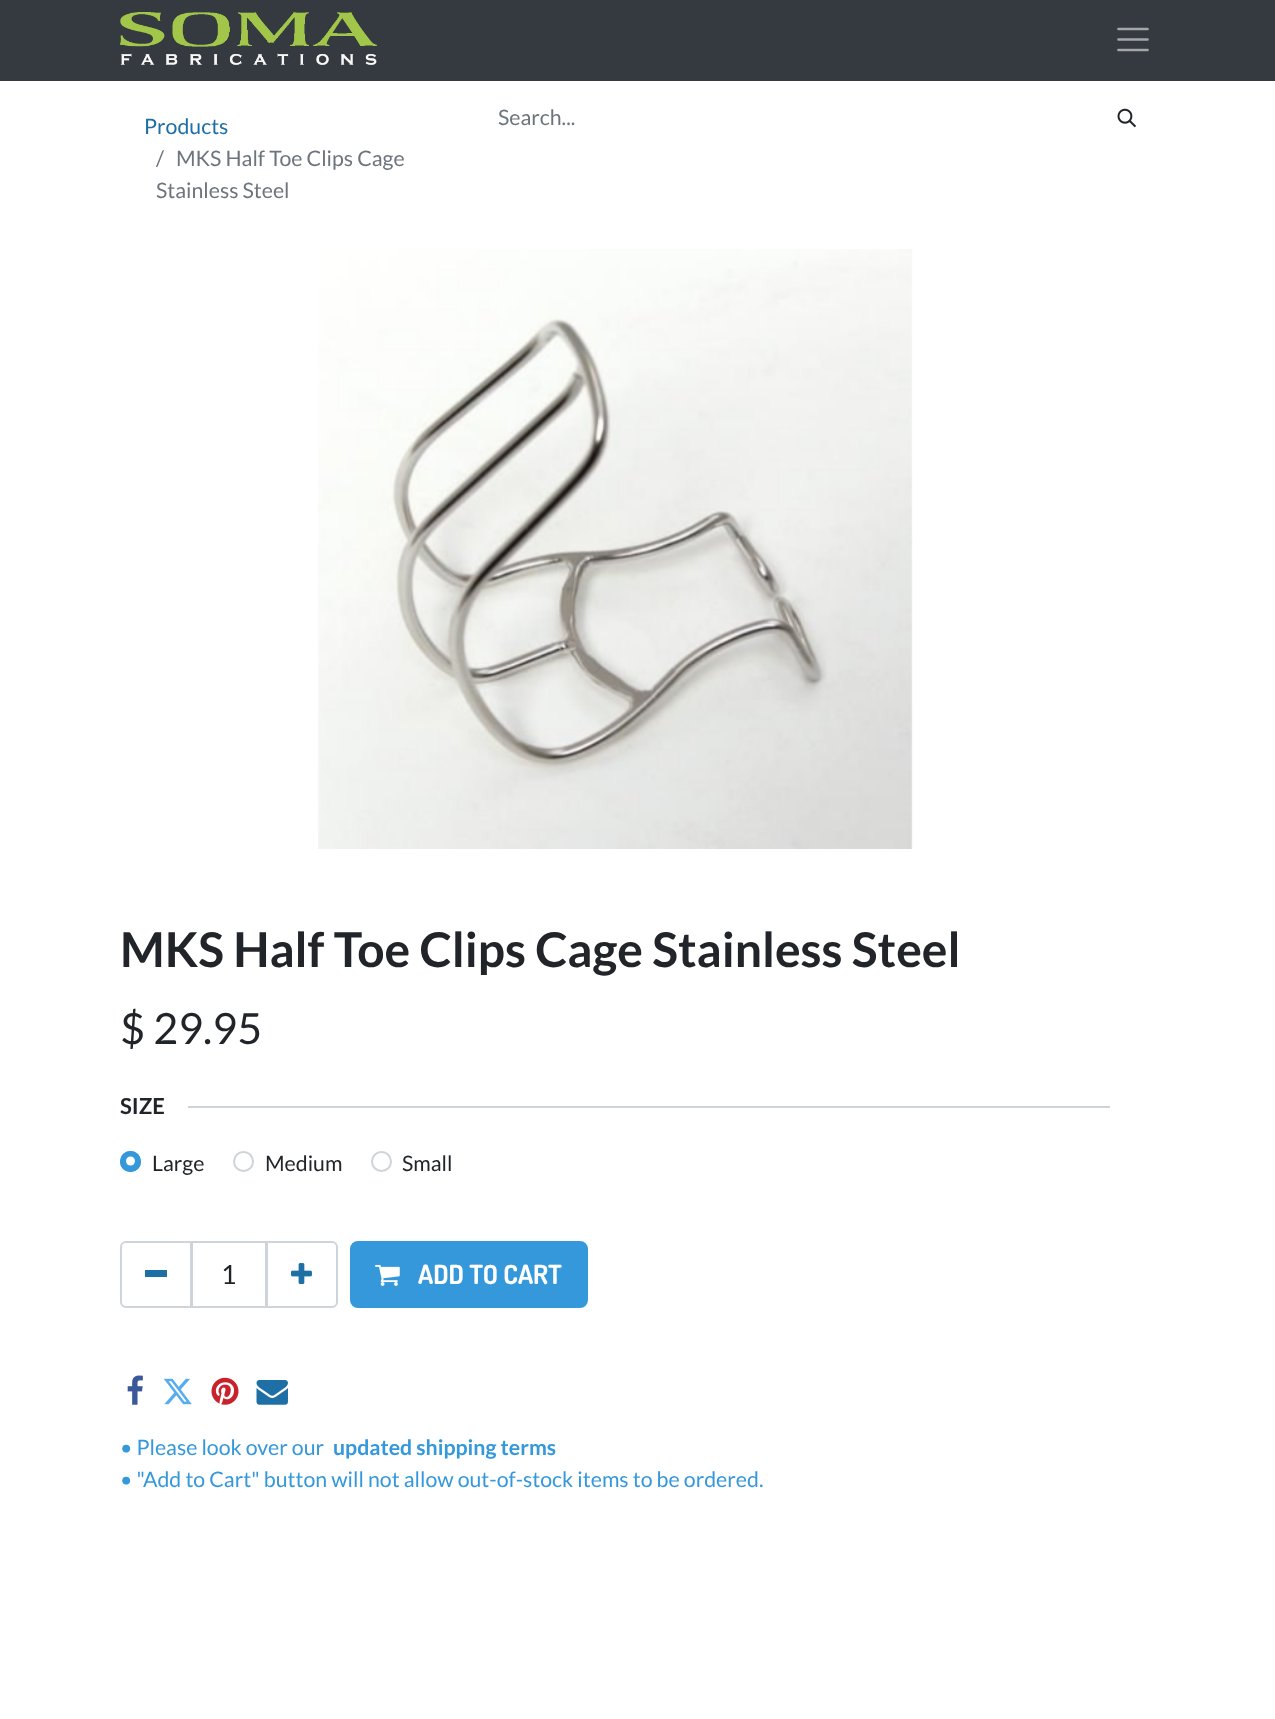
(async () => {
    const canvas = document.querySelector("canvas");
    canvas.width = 1275;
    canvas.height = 1719;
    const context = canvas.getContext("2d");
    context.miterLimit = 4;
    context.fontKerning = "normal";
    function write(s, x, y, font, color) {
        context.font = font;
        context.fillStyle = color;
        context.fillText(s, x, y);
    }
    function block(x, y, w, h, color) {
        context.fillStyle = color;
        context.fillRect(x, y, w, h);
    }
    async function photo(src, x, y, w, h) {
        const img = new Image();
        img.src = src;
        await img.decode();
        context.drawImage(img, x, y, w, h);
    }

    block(0, 0, 1275, 1719, "rgb(255, 255, 255)");
    block(0, 0, 1275, 81, "rgb(52, 58, 64)");
    await photo("media/1.png", 120, 12, 257, 53);
    context.beginPath();
    context.moveTo(1118.5, 29);
    context.lineTo(1147.5, 29);
    context.moveTo(1118.5, 39.5);
    context.lineTo(1147.5, 39.5);
    context.moveTo(1118.5, 50);
    context.lineTo(1147.5, 50);
    context.strokeStyle = "rgb(164, 166, 169)";
    context.lineWidth = 2.7;
    context.lineCap = "round";
    context.stroke();
    write("Products", 144, 134, "21.3px Lato", "rgb(29, 111, 165)");
    write("/", 156, 166, "21.3px Lato", "rgb(108, 117, 125)");
    write("MKS Half Toe Clips Cage", 176, 166, "21.3px Lato", "rgb(108, 117, 125)");
    write("Stainless Steel", 156, 198, "21.3px Lato", "rgb(108, 117, 125)");
    write("Search...", 498, 125, "21.3px Lato", "rgb(108, 117, 125)");
    await photo("media/2.png", 1117, 108, 20, 20);
    await photo("media/3.png", 318, 249, 595, 600);
    write("MKS Half Toe Clips Cage Stainless Steel", 120, 967, "bold 48px Lato", "rgb(33, 37, 41)");
    write("$ 29.95", 120, 1044, "43px Lato", "rgb(33, 37, 41)");
    write("SIZE", 120, 1114, "bold 22px Lato", "rgb(33, 37, 41)");
    block(188, 1106, 922, 2, "rgb(206, 212, 218)");
    context.fillStyle = "rgb(52, 152, 219)";
    context.beginPath();
    context.arc(130.5, 1161.5, 10.5, 0, Math.PI * 2);
    context.fill();
    context.fillStyle = "rgb(255, 255, 255)";
    context.beginPath();
    context.arc(130.5, 1161, 4.5, 0, Math.PI * 2);
    context.fill();
    context.beginPath();
    context.arc(130.5, 1161.5, 9.5, 0, Math.PI * 2);
    context.strokeStyle = "rgb(52, 152, 219)";
    context.lineWidth = 2;
    context.stroke();
    write("Large", 152, 1171, "21.3px Lato", "rgb(33, 37, 41)");
    context.beginPath();
    context.arc(243.5, 1161.5, 9.5, 0, Math.PI * 2);
    context.strokeStyle = "rgb(206, 212, 218)";
    context.stroke();
    write("Medium", 265, 1171, "21.3px Lato", "rgb(33, 37, 41)");
    context.beginPath();
    context.arc(381.5, 1161.5, 9.5, 0, Math.PI * 2);
    context.stroke();
    write("Small", 402, 1171, "21.3px Lato", "rgb(33, 37, 41)");
    context.strokeRect(192, 1242, 74, 65);
    context.beginPath();
    context.roundRect(121, 1242, 70, 65, [5, 0, 0, 5]);
    context.stroke();
    block(145, 1270, 22, 7, "rgb(29, 111, 165)");
    write("1", 221, 1284, "26.5px Lato", "rgb(33, 37, 41)");
    context.beginPath();
    context.roundRect(267, 1242, 70, 65, [0, 5, 5, 0]);
    context.stroke();
    await photo("media/4.png", 291, 1263, 21, 21);
    context.fillStyle = "rgb(52, 152, 219)";
    context.beginPath();
    context.roundRect(351, 1242, 236, 65, 7);
    context.fill();
    context.strokeStyle = "rgb(52, 152, 219)";
    context.stroke();
    await photo("media/5.png", 375, 1264, 25, 22);
    write("ADD TO CART", 418, 1284, "bold 26.5px Dosis", "rgb(255, 255, 255)");
    await photo("media/6.png", 127, 1375, 16, 30);
    await photo("media/7.png", 163, 1378, 29, 27);
    await photo("media/8.png", 211, 1377, 28, 28);
    await photo("media/9.png", 256, 1380, 32, 25);
    write("• Please look over our", 120, 1455, "21.3px Lato", "rgb(52, 152, 219)");
    write("updated shipping terms", 333, 1455, "bold 21.3px Lato", "rgb(52, 152, 219)");
    write("• \"Add to Cart\" button will not allow out-of-stock items to be ordered.", 120, 1487, "21.3px Lato", "rgb(52, 152, 219)");
})();
